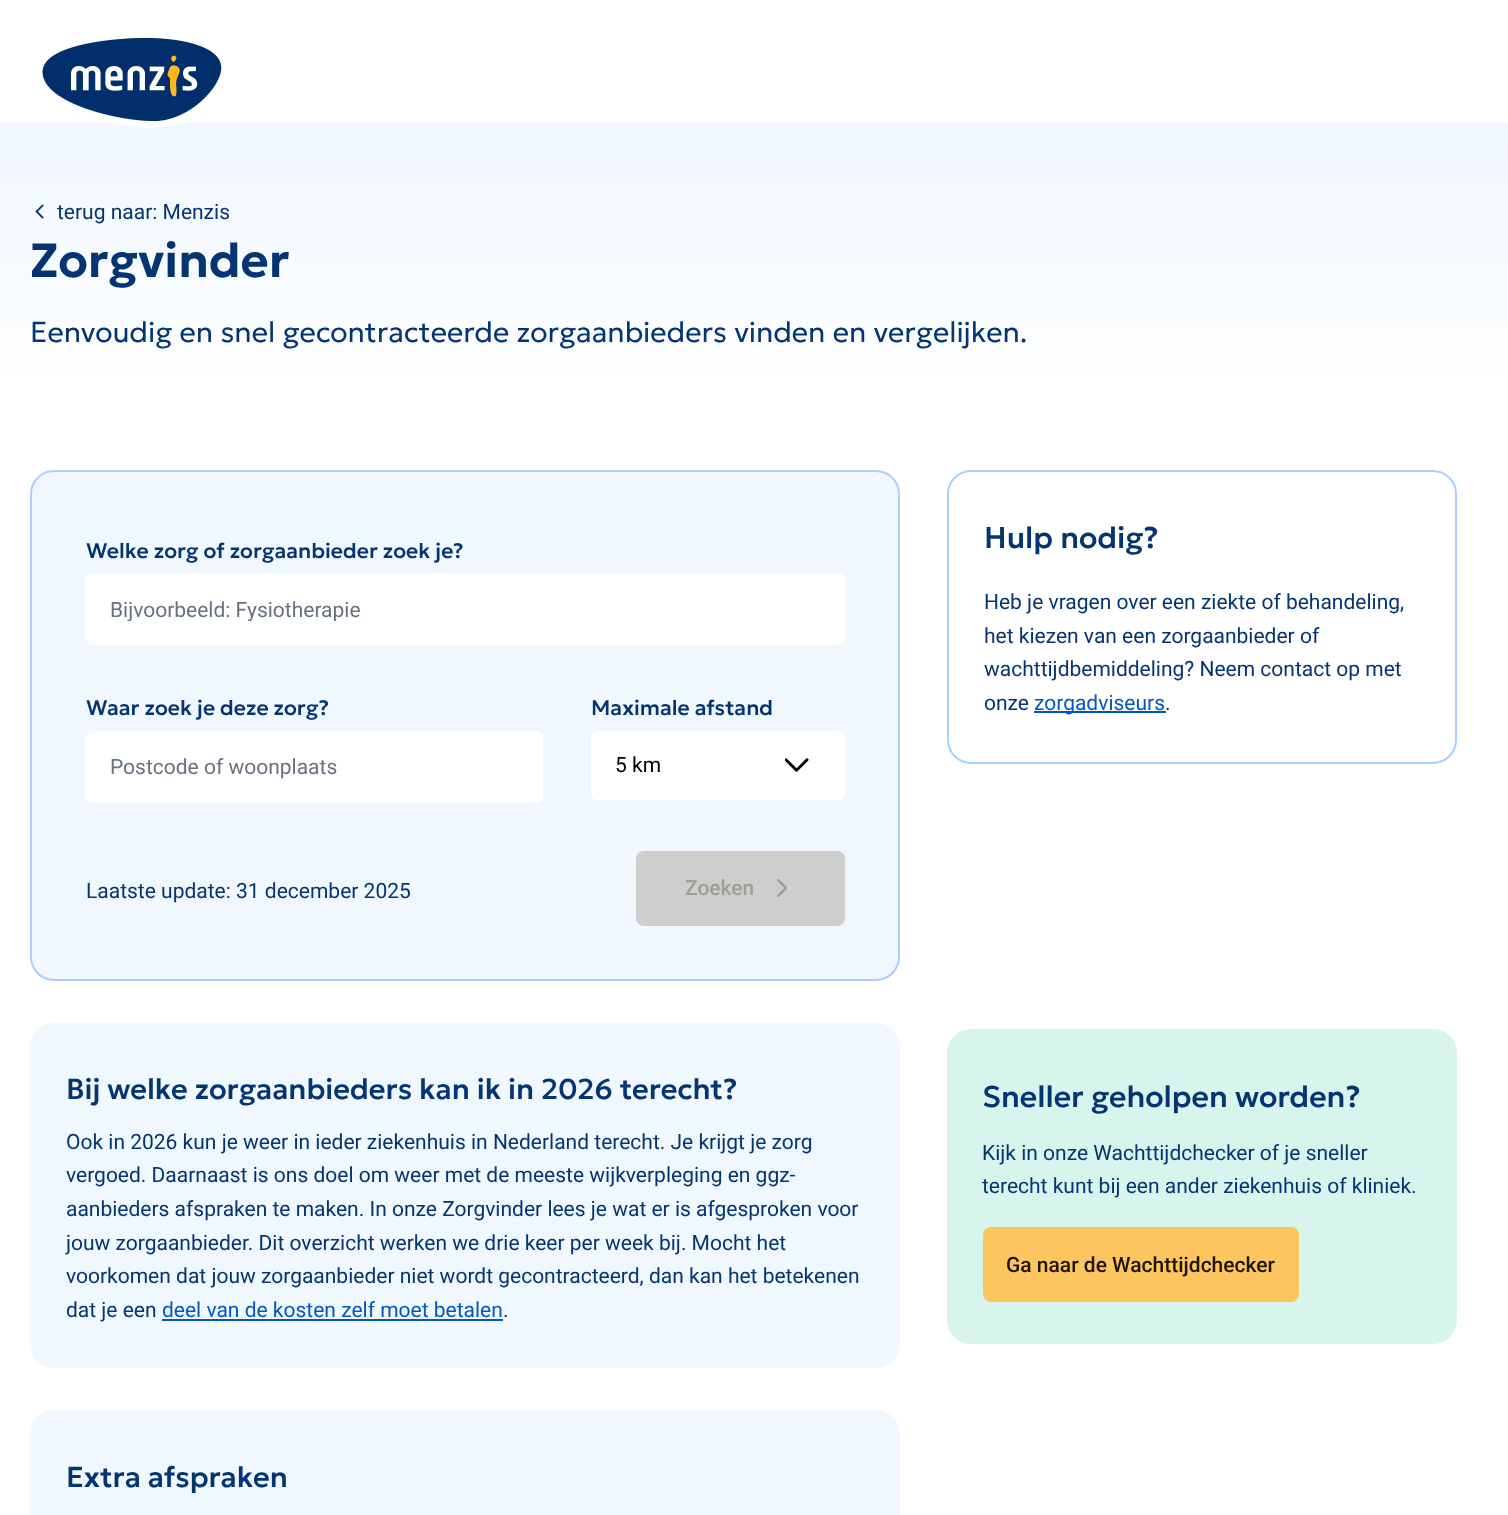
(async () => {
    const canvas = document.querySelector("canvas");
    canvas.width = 1508;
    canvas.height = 1515;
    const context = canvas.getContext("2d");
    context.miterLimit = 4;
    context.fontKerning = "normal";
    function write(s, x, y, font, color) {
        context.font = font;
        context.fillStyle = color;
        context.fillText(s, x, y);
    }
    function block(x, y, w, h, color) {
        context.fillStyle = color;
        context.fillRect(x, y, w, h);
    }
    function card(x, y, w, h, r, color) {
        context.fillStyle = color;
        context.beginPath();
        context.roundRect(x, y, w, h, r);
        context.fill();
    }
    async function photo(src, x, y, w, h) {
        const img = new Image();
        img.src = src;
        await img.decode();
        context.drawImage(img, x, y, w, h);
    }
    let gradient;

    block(0, 0, 1508, 1515, "rgb(255, 255, 255)");
    gradient = context.createLinearGradient(755, 123, 755, 422);
    gradient.addColorStop(0, "rgb(240, 247, 254)");
    gradient.addColorStop(1, "rgb(255, 255, 255)");
    context.fillStyle = gradient;
    context.fillRect(0, 123, 1508, 249);
    context.save();
    context.beginPath();
    context.rect(30, 24, 207, 104);
    context.clip();
    context.fillStyle = "rgb(255, 255, 255)";
    context.beginPath();
    context.moveTo(200, 30);
    context.bezierCurveTo(273, 51, 221, 116, 170, 126);
    context.bezierCurveTo(147, 131, 114, 124, 91, 118);
    context.bezierCurveTo(70, 112, 39, 100, 31, 78);
    context.bezierCurveTo(15, 25, 134, 23, 158, 24);
    context.bezierCurveTo(172, 25, 187, 27, 200, 30);
    context.closePath();
    context.fill();
    context.restore();
    await photo("media/1.png", 42, 37, 180, 85);
    await photo("media/2.png", 35, 204, 9, 15);
    write("terug naar: Menzis", 57, 219, "21px Roboto", "rgb(4, 53, 114)");
    write("Zorgvinder", 30, 277, "600 48px Geologica", "rgb(4, 53, 114)");
    write("Eenvoudig en snel gecontracteerde zorgaanbieders vinden en vergelijken.", 30, 342, "300 28.8px Geologica", "rgb(4, 53, 114)");
    context.fillStyle = "rgb(240, 247, 254)";
    context.beginPath();
    context.roundRect(31, 471, 868, 509, 23);
    context.fill();
    context.strokeStyle = "rgb(171, 207, 252)";
    context.lineWidth = 2;
    context.stroke();
    write("Welke zorg of zorgaanbieder zoek je?", 86, 558, "500 21px Geologica", "rgb(4, 53, 114)");
    card(86, 573, 759, 72, 6, "rgb(255, 255, 255)");
    context.save();
    context.beginPath();
    context.rect(110, 597, 663, 24);
    context.clip();
    write("Bijvoorbeeld: Fysiotherapie", 110, 617, "21px Roboto", "rgb(104, 113, 128)");
    context.restore();
    write("Waar zoek je deze zorg?", 86, 715, "500 21px Geologica", "rgb(4, 53, 114)");
    card(86, 731, 457, 72, 6, "rgb(255, 255, 255)");
    write("Postcode of woonplaats", 110, 774, "21px Roboto", "rgb(104, 113, 128)");
    write("Maximale afstand", 591, 715, "500 21px Geologica", "rgb(4, 53, 114)");
    card(591, 731, 254, 69, 6, "rgb(255, 255, 255)");
    await photo("media/3.png", 785, 758, 24, 14);
    write("5 km", 615, 772, "21px Roboto", "rgb(0, 0, 0)");
    write("Laatste update: 31 december 2025", 86, 898, "21px Roboto", "rgb(4, 53, 114)");
    card(636, 851, 209, 75, 8, "rgb(206, 206, 205)");
    write("Zoeken", 685, 895, "500 21px Roboto", "rgb(157, 157, 154)");
    await photo("media/4.png", 777, 879, 11, 18);
    context.beginPath();
    context.roundRect(948, 471, 508, 292, 23);
    context.stroke();
    write("Hulp nodig?", 984, 548, "500 30px Geologica", "rgb(4, 53, 114)");
    write("Heb je vragen over een ziekte of behandeling,", 984, 609, "21px Roboto", "rgb(4, 53, 114)");
    write("het kiezen van een zorgaanbieder of", 984, 643, "21px Roboto", "rgb(4, 53, 114)");
    write("wachttijdbemiddeling? Neem contact op met", 984, 676, "21px Roboto", "rgb(4, 53, 114)");
    write("onze", 984, 710, "21px Roboto", "rgb(4, 53, 114)");
    block(1034, 711, 132, 2, "rgb(0, 87, 194)");
    write("zorgadviseurs", 1034, 710, "21px Roboto", "rgb(0, 87, 194)");
    write(".", 1165, 710, "21px Roboto", "rgb(4, 53, 114)");
    card(30, 1023, 870, 345, 24, "rgb(240, 247, 254)");
    write("Bij welke zorgaanbieders kan ik in 2026 terecht?", 66, 1099, "500 28.8px Geologica", "rgb(4, 53, 114)");
    write("Ook in 2026 kun je weer in ieder ziekenhuis in Nederland terecht. Je krijgt je zorg", 66, 1149, "21px Roboto", "rgb(4, 53, 114)");
    write("vergoed. Daarnaast is ons doel om weer met de meeste wijkverpleging en ggz-", 66, 1182, "21px Roboto", "rgb(4, 53, 114)");
    write("aanbieders afspraken te maken. In onze Zorgvinder lees je wat er is afgesproken voor", 66, 1216, "21px Roboto", "rgb(4, 53, 114)");
    write("jouw zorgaanbieder. Dit overzicht werken we drie keer per week bij. Mocht het", 66, 1250, "21px Roboto", "rgb(4, 53, 114)");
    write("voorkomen dat jouw zorgaanbieder niet wordt gecontracteerd, dan kan het betekenen", 66, 1283, "21px Roboto", "rgb(4, 53, 114)");
    write("dat je een", 66, 1317, "21px Roboto", "rgb(4, 53, 114)");
    write("deel van de kosten zelf moet betalen", 162, 1317, "21px Roboto", "rgb(0, 87, 194)");
    block(162, 1319, 341, 2, "rgb(0, 87, 194)");
    write(".", 503, 1317, "21px Roboto", "rgb(4, 53, 114)");
    card(30, 1410, 870, 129, 24, "rgb(240, 247, 254)");
    write("Extra afspraken", 66, 1487, "500 28.8px Geologica", "rgb(4, 53, 114)");
    card(947, 1029, 510, 315, 24, "rgb(215, 244, 237)");
    write("Sneller geholpen worden?", 982, 1107, "500 30px Geologica", "rgb(4, 53, 114)");
    write("Kijk in onze Wachttijdchecker of je sneller", 982, 1160, "21px Roboto", "rgb(4, 53, 114)");
    write("terecht kunt bij een ander ziekenhuis of kliniek.", 982, 1193, "21px Roboto", "rgb(4, 53, 114)");
    card(983, 1227, 316, 75, 8, "rgb(252, 197, 95)");
    write("Ga naar de Wachttijdchecker", 1006, 1272, "500 21px Roboto", "rgb(30, 20, 0)");
})();
